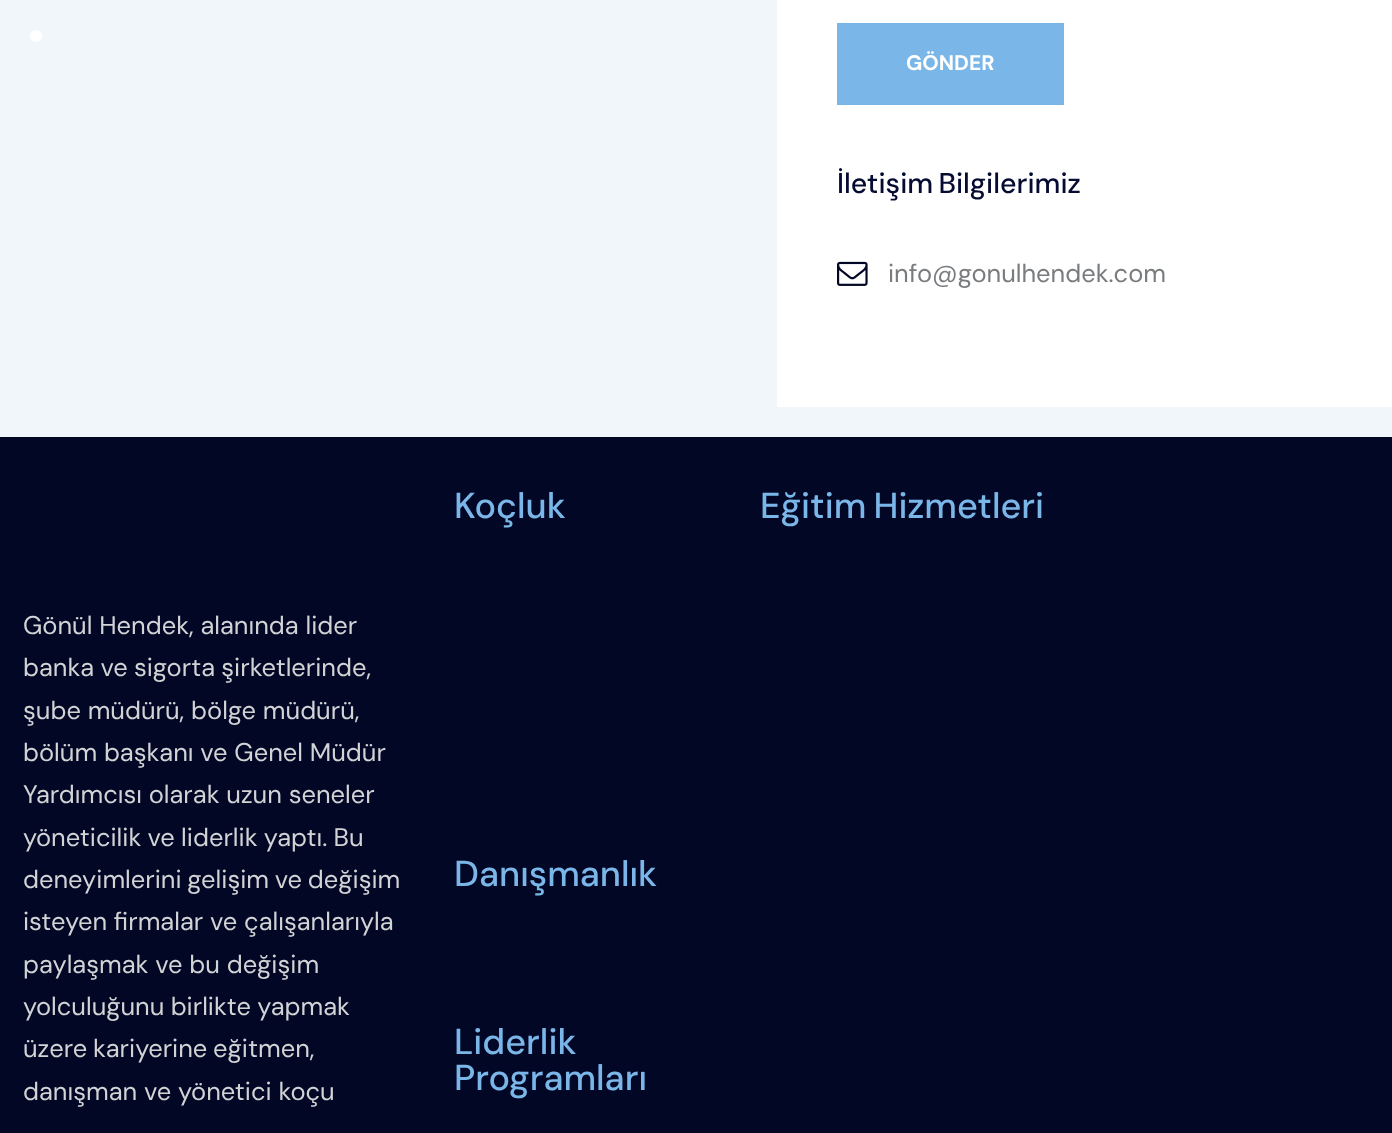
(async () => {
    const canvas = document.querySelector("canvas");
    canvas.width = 1392;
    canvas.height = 1133;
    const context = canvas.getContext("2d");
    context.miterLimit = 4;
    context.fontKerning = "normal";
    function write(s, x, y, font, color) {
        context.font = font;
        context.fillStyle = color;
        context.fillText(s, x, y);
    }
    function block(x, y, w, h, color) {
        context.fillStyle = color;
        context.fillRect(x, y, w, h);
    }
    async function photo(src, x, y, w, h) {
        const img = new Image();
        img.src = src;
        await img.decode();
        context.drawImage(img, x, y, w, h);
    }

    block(0, 0, 1392, 1133, "rgb(240, 246, 250)");
    context.fillStyle = "rgb(255, 255, 255)";
    context.beginPath();
    context.arc(36, 36, 6, 0, Math.PI * 2);
    context.fill();
    block(777, 0, 615, 407, "rgb(255, 255, 255)");
    block(837, 23, 227, 82, "rgb(122, 182, 232)");
    write("GÖNDER", 906, 70, "bold 21px DM Sans", "rgb(255, 255, 255)");
    context.wordSpacing = "-2px";
    write("İletişim Bilgilerimiz", 837, 193, "500 28.5px DM Sans", "rgb(5, 11, 49)");
    await photo("media/1.png", 837, 261, 31, 25);
    context.wordSpacing = "0px";
    write("info@gonulhendek.com", 888, 282, "25.5px DM Sans", "rgb(121, 124, 127)");
    block(0, 437, 1392, 696, "rgb(2, 7, 38)");
    write("Gönül Hendek, alanında lider", 23, 634, "25.5px DM Sans", "rgb(210, 211, 213)");
    context.wordSpacing = "-0.5px";
    write("banka ve sigorta şirketlerinde,", 23, 676, "25.5px DM Sans", "rgb(210, 211, 213)");
    context.wordSpacing = "0px";
    write("şube müdürü, bölge müdürü,", 23, 719, "25.5px DM Sans", "rgb(210, 211, 213)");
    write("bölüm başkanı ve Genel Müdür", 23, 761, "25.5px DM Sans", "rgb(210, 211, 213)");
    write("Yardımcısı olarak uzun seneler", 23, 803, "25.5px DM Sans", "rgb(210, 211, 213)");
    context.wordSpacing = "-0.5px";
    write("yöneticilik ve liderlik yaptı. Bu", 23, 846, "25.5px DM Sans", "rgb(210, 211, 213)");
    context.wordSpacing = "-1px";
    write("deneyimlerini gelişim ve değişim", 23, 888, "25.5px DM Sans", "rgb(210, 211, 213)");
    context.wordSpacing = "0px";
    write("isteyen firmalar ve çalışanlarıyla", 23, 930, "25.5px DM Sans", "rgb(210, 211, 213)");
    write("paylaşmak ve bu değişim", 23, 973, "25.5px DM Sans", "rgb(210, 211, 213)");
    context.wordSpacing = "-0.5px";
    write("yolculuğunu birlikte yapmak", 23, 1015, "25.5px DM Sans", "rgb(210, 211, 213)");
    context.wordSpacing = "-1px";
    write("üzere kariyerine eğitmen,", 23, 1057, "25.5px DM Sans", "rgb(210, 211, 213)");
    context.wordSpacing = "0px";
    write("danışman ve yönetici koçu", 23, 1100, "25.5px DM Sans", "rgb(210, 211, 213)");
    write("Koçluk", 454, 518, "500 36px DM Sans", "rgb(122, 182, 232)");
    write("Danışmanlık", 454, 886, "500 36px DM Sans", "rgb(122, 182, 232)");
    write("Liderlik", 454, 1054, "500 36px DM Sans", "rgb(122, 182, 232)");
    write("Programları", 454, 1090, "500 36px DM Sans", "rgb(122, 182, 232)");
    context.wordSpacing = "-2px";
    write("Eğitim Hizmetleri", 760, 518, "500 36px DM Sans", "rgb(122, 182, 232)");
})();
